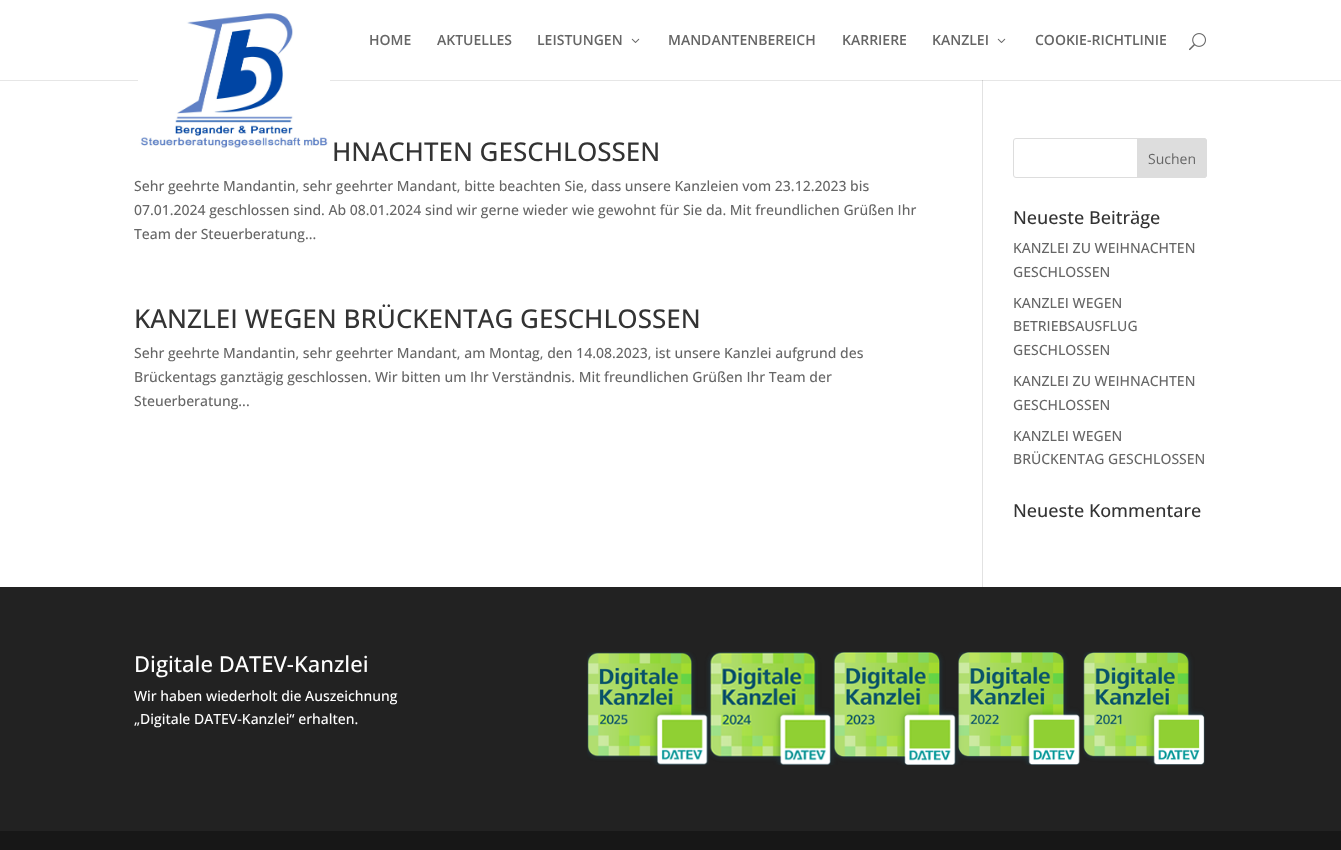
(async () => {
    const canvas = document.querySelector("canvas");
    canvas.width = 1341;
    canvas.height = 850;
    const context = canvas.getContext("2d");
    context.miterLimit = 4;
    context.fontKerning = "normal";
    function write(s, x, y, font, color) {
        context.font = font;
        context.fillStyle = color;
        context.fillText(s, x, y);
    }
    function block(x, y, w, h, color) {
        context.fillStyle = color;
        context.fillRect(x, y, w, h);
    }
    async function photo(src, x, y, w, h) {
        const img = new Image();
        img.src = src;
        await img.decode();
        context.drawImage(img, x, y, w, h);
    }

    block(0, 0, 1341, 850, "rgb(255, 255, 255)");
    block(0, 80, 1341, 1, "rgb(230, 230, 230)");
    await photo("media/1.png", 138, 13, 192, 137);
    write("HOME", 369, 45, "600 14px Open Sans", "rgb(102, 102, 102)");
    write("AKTUELLES", 437, 45, "600 14px Open Sans", "rgb(102, 102, 102)");
    write("LEISTUNGEN", 537, 45, "600 14px Open Sans", "rgb(102, 102, 102)");
    await photo("media/2.png", 631, 38, 9, 5);
    write("MANDANTENBEREICH", 668, 45, "600 14px Open Sans", "rgb(102, 102, 102)");
    write("KARRIERE", 842, 45, "600 14px Open Sans", "rgb(102, 102, 102)");
    write("KANZLEI", 932, 45, "600 14px Open Sans", "rgb(102, 102, 102)");
    await photo("media/2.png", 997, 38, 9, 5);
    write("COOKIE-RICHTLINIE", 1035, 45, "600 14px Open Sans", "rgb(102, 102, 102)");
    await photo("media/3.png", 1189, 33, 17, 18);
    block(982, 80, 1, 507, "rgb(226, 226, 226)");
    block(982, 80, 1, 1, "rgb(203, 203, 203)");
    write("HNACHTEN GESCHLOSSEN", 332, 161, "500 26px Open Sans", "rgb(51, 51, 51)");
    write("Sehr geehrte Mandantin, sehr geehrter Mandant, bitte beachten Sie, dass unsere Kanzleien vom 23.12.2023 bis", 134, 191, "500 14px Open Sans", "rgb(102, 102, 102)");
    write("07.01.2024 geschlossen sind. Ab 08.01.2024 sind wir gerne wieder wie gewohnt für Sie da. Mit freundlichen Grüßen Ihr", 134, 215, "500 14px Open Sans", "rgb(102, 102, 102)");
    write("Team der Steuerberatung...", 134, 239, "500 14px Open Sans", "rgb(102, 102, 102)");
    write("KANZLEI WEGEN BRÜCKENTAG GESCHLOSSEN", 134, 328, "500 26px Open Sans", "rgb(51, 51, 51)");
    write("Sehr geehrte Mandantin, sehr geehrter Mandant, am Montag, den 14.08.2023, ist unsere Kanzlei aufgrund des", 134, 358, "500 14px Open Sans", "rgb(102, 102, 102)");
    write("Brückentags ganztägig geschlossen. Wir bitten um Ihr Verständnis. Mit freundlichen Grüßen Ihr Team der", 134, 382, "500 14px Open Sans", "rgb(102, 102, 102)");
    write("Steuerberatung...", 134, 406, "500 14px Open Sans", "rgb(102, 102, 102)");
    context.beginPath();
    context.roundRect(1013.5, 138.5, 193, 39, 2.5);
    context.strokeStyle = "rgb(221, 221, 221)";
    context.stroke();
    context.fillStyle = "rgb(221, 221, 221)";
    context.beginPath();
    context.roundRect(1137.5, 138.5, 69, 39, [0, 2.5, 2.5, 0]);
    context.fill();
    context.stroke();
    write("Suchen", 1148, 164, "14px Open Sans", "rgb(102, 102, 102)");
    write("Neueste Beiträge", 1013, 224, "500 18px Open Sans", "rgb(51, 51, 51)");
    write("KANZLEI ZU WEIHNACHTEN", 1013, 253, "500 14px Open Sans", "rgb(102, 102, 102)");
    write("GESCHLOSSEN", 1013, 277, "500 14px Open Sans", "rgb(102, 102, 102)");
    write("KANZLEI WEGEN", 1013, 308, "500 14px Open Sans", "rgb(102, 102, 102)");
    write("BETRIEBSAUSFLUG", 1013, 331, "500 14px Open Sans", "rgb(102, 102, 102)");
    write("GESCHLOSSEN", 1013, 355, "500 14px Open Sans", "rgb(102, 102, 102)");
    write("KANZLEI ZU WEIHNACHTEN", 1013, 386, "500 14px Open Sans", "rgb(102, 102, 102)");
    write("GESCHLOSSEN", 1013, 410, "500 14px Open Sans", "rgb(102, 102, 102)");
    write("KANZLEI WEGEN", 1013, 441, "500 14px Open Sans", "rgb(102, 102, 102)");
    write("BRÜCKENTAG GESCHLOSSEN", 1013, 464, "500 14px Open Sans", "rgb(102, 102, 102)");
    write("Neueste Kommentare", 1013, 517, "500 18px Open Sans", "rgb(51, 51, 51)");
    block(0, 587, 1341, 244, "rgb(34, 34, 34)");
    write("Digitale DATEV-Kanzlei", 134, 672, "500 22px Open Sans", "rgb(255, 255, 255)");
    write("Wir haben wiederholt die Auszeichnung", 134, 701, "500 14px Open Sans", "rgb(255, 255, 255)");
    write("„Digitale DATEV-Kanzlei“ erhalten.", 134, 724, "500 14px Open Sans", "rgb(255, 255, 255)");
    await photo("media/4.png", 587, 652, 618, 113);
    block(0, 831, 1341, 19, "rgb(23, 23, 23)");
})();
